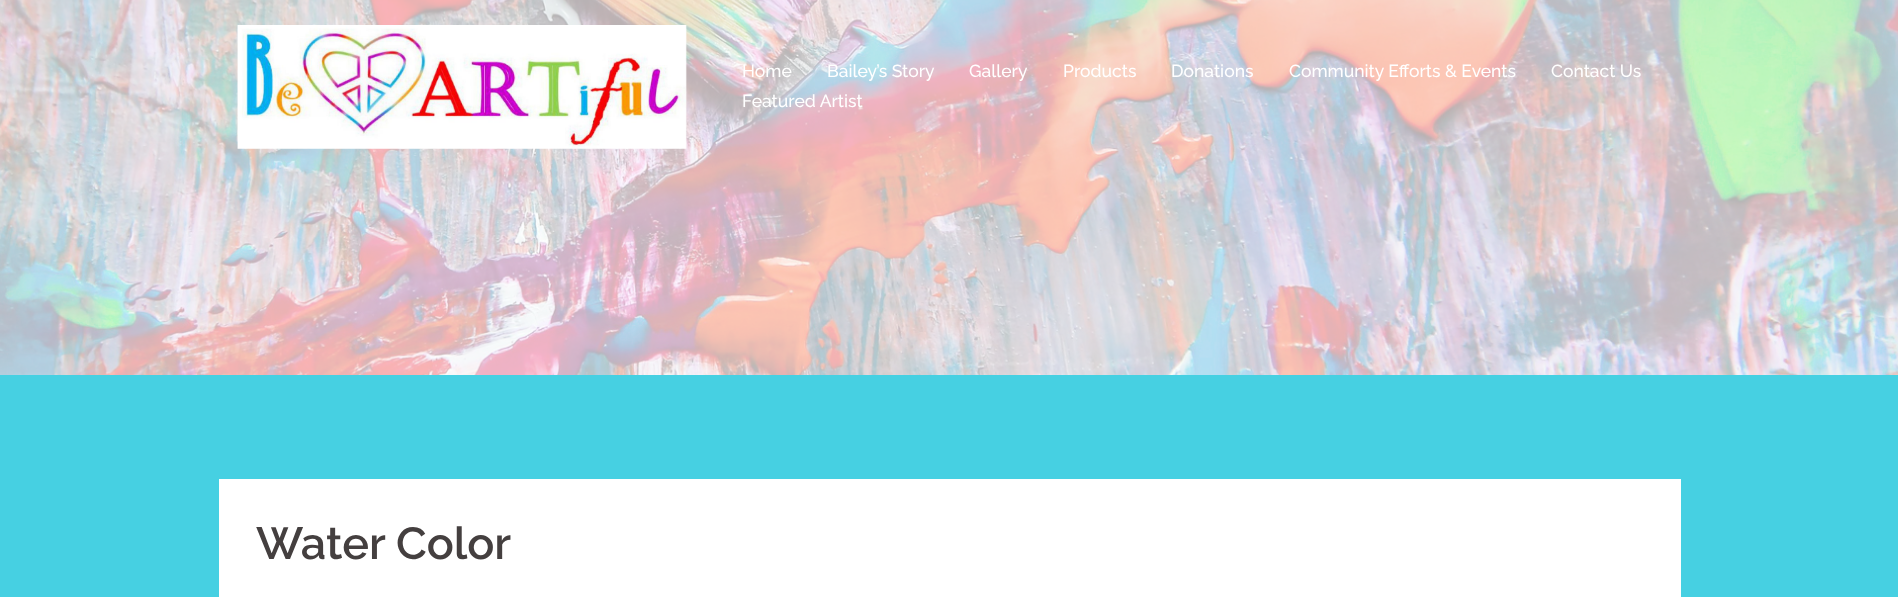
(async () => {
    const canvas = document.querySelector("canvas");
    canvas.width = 1898;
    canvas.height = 597;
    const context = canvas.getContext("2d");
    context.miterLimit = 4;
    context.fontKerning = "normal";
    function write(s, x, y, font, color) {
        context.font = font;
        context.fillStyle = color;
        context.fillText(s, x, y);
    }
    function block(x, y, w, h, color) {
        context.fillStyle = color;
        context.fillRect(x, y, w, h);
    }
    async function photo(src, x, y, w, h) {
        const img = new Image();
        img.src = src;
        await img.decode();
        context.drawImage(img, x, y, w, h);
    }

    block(0, 0, 1898, 597, "rgb(70, 208, 226)");
    await photo("media/1.png", 0, 0, 1898, 375);
    await photo("media/2.png", 237, 25, 450, 124);
    write("Home", 742, 77, "500 17.5px Raleway", "rgb(255, 255, 255)");
    write("Bailey’s Story", 827, 77, "500 17.5px Raleway", "rgb(255, 255, 255)");
    write("Gallery", 969, 77, "500 17.5px Raleway", "rgb(255, 255, 255)");
    write("Products", 1063, 77, "500 17.5px Raleway", "rgb(255, 255, 255)");
    write("Donations", 1171, 77, "500 17.5px Raleway", "rgb(255, 255, 255)");
    write("Community Efforts & Events", 1289, 77, "500 17.5px Raleway", "rgb(255, 255, 255)");
    write("Contact Us", 1551, 77, "500 17.5px Raleway", "rgb(255, 255, 255)");
    write("Featured Artist", 742, 107, "500 17.5px Raleway", "rgb(255, 255, 255)");
    block(219, 479, 1462, 118, "rgb(255, 255, 255)");
    write("Water Color", 256, 559, "600 45px Raleway", "rgb(68, 63, 63)");
})();
